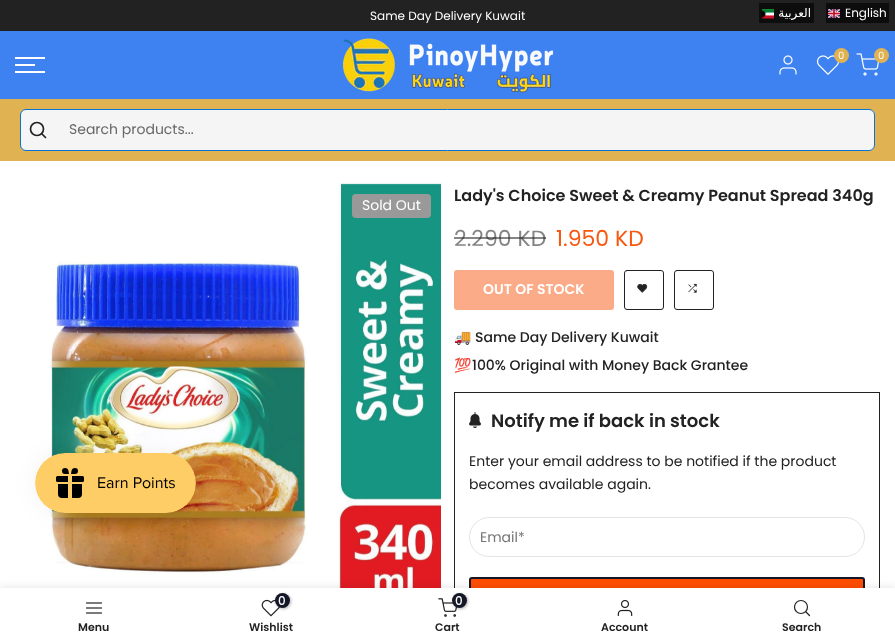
(async () => {
    const canvas = document.querySelector("canvas");
    canvas.width = 895;
    canvas.height = 643;
    const context = canvas.getContext("2d");
    context.miterLimit = 4;
    context.fontKerning = "normal";
    function write(s, x, y, font, color) {
        context.font = font;
        context.fillStyle = color;
        context.fillText(s, x, y);
    }
    function block(x, y, w, h, color) {
        context.fillStyle = color;
        context.fillRect(x, y, w, h);
    }
    function card(x, y, w, h, r, color) {
        context.fillStyle = color;
        context.beginPath();
        context.roundRect(x, y, w, h, r);
        context.fill();
    }
    async function photo(src, x, y, w, h) {
        const img = new Image();
        img.src = src;
        await img.decode();
        context.drawImage(img, x, y, w, h);
    }

    block(0, 0, 895, 643, "rgb(255, 255, 255)");
    block(0, 0, 895, 31, "rgb(34, 34, 34)");
    write("Same Day Delivery Kuwait", 370, 20, "12px Poppins", "rgb(255, 255, 255)");
    block(759, 3, 55, 20, "rgb(13, 13, 13)");
    await photo("media/1.png", 762, 9, 12, 10);
    await photo("media/2.png", 761, 9, 13, 10);
    context.direction = "rtl";
    write("العربية", 811, 17, "12px DejaVu Sans", "rgb(255, 255, 255)");
    block(826, 3, 63, 20, "rgb(13, 13, 13)");
    await photo("media/3.png", 828, 9, 12, 9);
    context.direction = "ltr";
    write("English", 845, 17, "12px Poppins", "rgb(255, 255, 255)");
    block(0, 31, 895, 68, "rgb(62, 130, 242)");
    await photo("media/4.png", 342, 38, 212, 55);
    await photo("media/5.png", 779, 55, 18, 20);
    await photo("media/6.png", 816, 55, 23, 20);
    context.fillStyle = "rgb(224, 178, 82)";
    context.beginPath();
    context.arc(841.5, 55.5, 7.5, 0, Math.PI * 2);
    context.fill();
    write("0", 838, 59, "10px Poppins", "rgb(255, 255, 255)");
    await photo("media/7.png", 856, 53, 23, 23);
    context.fillStyle = "rgb(224, 178, 82)";
    context.beginPath();
    context.arc(881.5, 55.5, 7.5, 0, Math.PI * 2);
    context.fill();
    write("0", 878, 59, "10px Poppins", "rgb(255, 255, 255)");
    block(15, 57, 30, 2, "rgb(255, 255, 255)");
    block(15, 64, 20, 2, "rgb(255, 255, 255)");
    block(15, 71, 30, 2, "rgb(255, 255, 255)");
    block(0, 99, 895, 62, "rgb(224, 178, 82)");
    context.fillStyle = "rgb(245, 245, 245)";
    context.beginPath();
    context.roundRect(20.5, 109.5, 854, 41, 5.5);
    context.fill();
    context.strokeStyle = "rgb(7, 116, 215)";
    context.stroke();
    context.beginPath();
    context.arc(37, 129, 6.5, 0, Math.PI * 2);
    context.strokeStyle = "rgb(34, 34, 34)";
    context.lineWidth = 1.7;
    context.stroke();
    context.beginPath();
    context.moveTo(45.5, 137.5);
    context.lineTo(42, 134);
    context.lineCap = "round";
    context.lineJoin = "round";
    context.stroke();
    write("Search products...", 69, 134, "14px Poppins", "rgb(104, 104, 104)");
    await photo("media/9.png", 49, 183, 392, 405);
    context.fillStyle = "rgba(0, 0, 0, 0.05)";
    context.filter = "blur(12.5px)";
    context.beginPath();
    context.roundRect(35, 453, 161, 60, 30);
    context.fill();
    context.filter = "none";
    await photo("media/8.png", 35, 453, 161, 60);
    card(352, 194, 79, 24, 4, "rgb(153, 153, 153)");
    write("Sold Out", 362, 210, "14px Poppins", "rgb(255, 255, 255)");
    write("Lady's Choice Sweet & Creamy Peanut Spread 340g", 454, 201, "600 16px Poppins", "rgb(34, 34, 34)");
    write("2.290 KD", 454, 246, "22px Poppins", "rgb(133, 133, 133)");
    block(454, 237, 92, 2, "rgba(34, 34, 34, 0.55)");
    write("1.950 KD", 556, 246, "22px Poppins", "rgb(248, 87, 18)");
    context.fillStyle = "rgb(252, 171, 137)";
    context.beginPath();
    context.roundRect(455, 271, 158, 38, 2);
    context.fill();
    context.strokeStyle = "rgb(252, 171, 137)";
    context.lineWidth = 2;
    context.lineJoin = "miter";
    context.stroke();
    write("OUT OF STOCK", 483, 294, "600 14px Poppins", "rgb(255, 255, 255)");
    context.beginPath();
    context.roundRect(624.5, 270.5, 39, 39, 2.5);
    context.strokeStyle = "rgb(34, 34, 34)";
    context.lineWidth = 1;
    context.stroke();
    await photo("media/10.png", 637, 284, 11, 9);
    context.beginPath();
    context.roundRect(674.5, 270.5, 39, 39, 2.5);
    context.stroke();
    await photo("media/11.png", 688, 283, 9, 10);
    write("🚚", 454, 342, "14px Noto Color Emoji", "rgb(34, 34, 34)");
    write("Same Day Delivery Kuwait", 475, 342, "500 14px Poppins", "rgb(34, 34, 34)");
    write("💯", 454, 370, "14px Noto Color Emoji", "rgb(34, 34, 34)");
    write("100% Original with Money Back Grantee", 472, 370, "500 14px Poppins", "rgb(34, 34, 34)");
    context.strokeRect(454.5, 392.5, 425, 240);
    await photo("media/12.png", 469, 412, 12, 16);
    write("Notify me if back in stock", 491, 427, "600 18px Poppins", "rgb(34, 34, 34)");
    write("Enter your email address to be notified if the product", 469, 466, "14px Poppins", "rgb(34, 34, 34)");
    write("becomes available again.", 469, 489, "14px Poppins", "rgb(34, 34, 34)");
    context.beginPath();
    context.roundRect(469.5, 517.5, 395, 39, 19.5);
    context.strokeStyle = "rgb(228, 228, 228)";
    context.stroke();
    write("Email*", 480, 542, "14px Poppins", "rgb(117, 117, 117)");
    context.fillStyle = "rgb(255, 78, 0)";
    context.beginPath();
    context.roundRect(470, 578, 394, 39, 2);
    context.fill();
    context.strokeStyle = "rgb(19, 23, 40)";
    context.lineWidth = 2;
    context.stroke();
    context.fillStyle = "rgba(0, 0, 0, 0.12)";
    context.filter = "blur(4.5px)";
    context.beginPath();
    context.rect(0, 588, 895, 55);
    context.fill();
    context.filter = "none";
    block(0, 588, 895, 55, "rgb(255, 255, 255)");
    await photo("media/13.png", 86, 602, 16, 12);
    write("Menu", 78, 631, "600 11px Poppins", "rgb(34, 34, 34)");
    await photo("media/14.png", 261, 599, 19, 18);
    context.fillStyle = "rgba(0, 0, 0, 0.3)";
    context.filter = "blur(1.5px)";
    context.beginPath();
    context.roundRect(276, 594, 15, 15, 7.5);
    context.fill();
    context.filter = "none";
    context.fillStyle = "rgb(19, 23, 40)";
    context.beginPath();
    context.arc(282.5, 600.5, 7.5, 0, Math.PI * 2);
    context.fill();
    write("0", 278, 605, "500 12px Poppins", "rgb(255, 255, 255)");
    write("Wishlist", 249, 631, "600 11px Poppins", "rgb(34, 34, 34)");
    await photo("media/15.png", 438, 598, 19, 19);
    context.fillStyle = "rgba(0, 0, 0, 0.3)";
    context.filter = "blur(1.5px)";
    context.beginPath();
    context.roundRect(453, 594, 15, 15, 7.5);
    context.fill();
    context.filter = "none";
    context.fillStyle = "rgb(19, 23, 40)";
    context.beginPath();
    context.arc(459.5, 600.5, 7.5, 0, Math.PI * 2);
    context.fill();
    write("0", 455, 605, "500 12px Poppins", "rgb(255, 255, 255)");
    write("Cart", 435, 631, "600 11px Poppins", "rgb(34, 34, 34)");
    await photo("media/16.png", 617, 599, 16, 18);
    write("Account", 601, 631, "600 11px Poppins", "rgb(34, 34, 34)");
    context.beginPath();
    context.arc(801, 607, 6.5, 0, Math.PI * 2);
    context.strokeStyle = "rgb(34, 34, 34)";
    context.lineWidth = 1.2;
    context.stroke();
    context.beginPath();
    context.moveTo(809.5, 615.5);
    context.lineTo(806, 612);
    context.lineJoin = "round";
    context.stroke();
    write("Search", 782, 631, "600 11px Poppins", "rgb(34, 34, 34)");
})();
